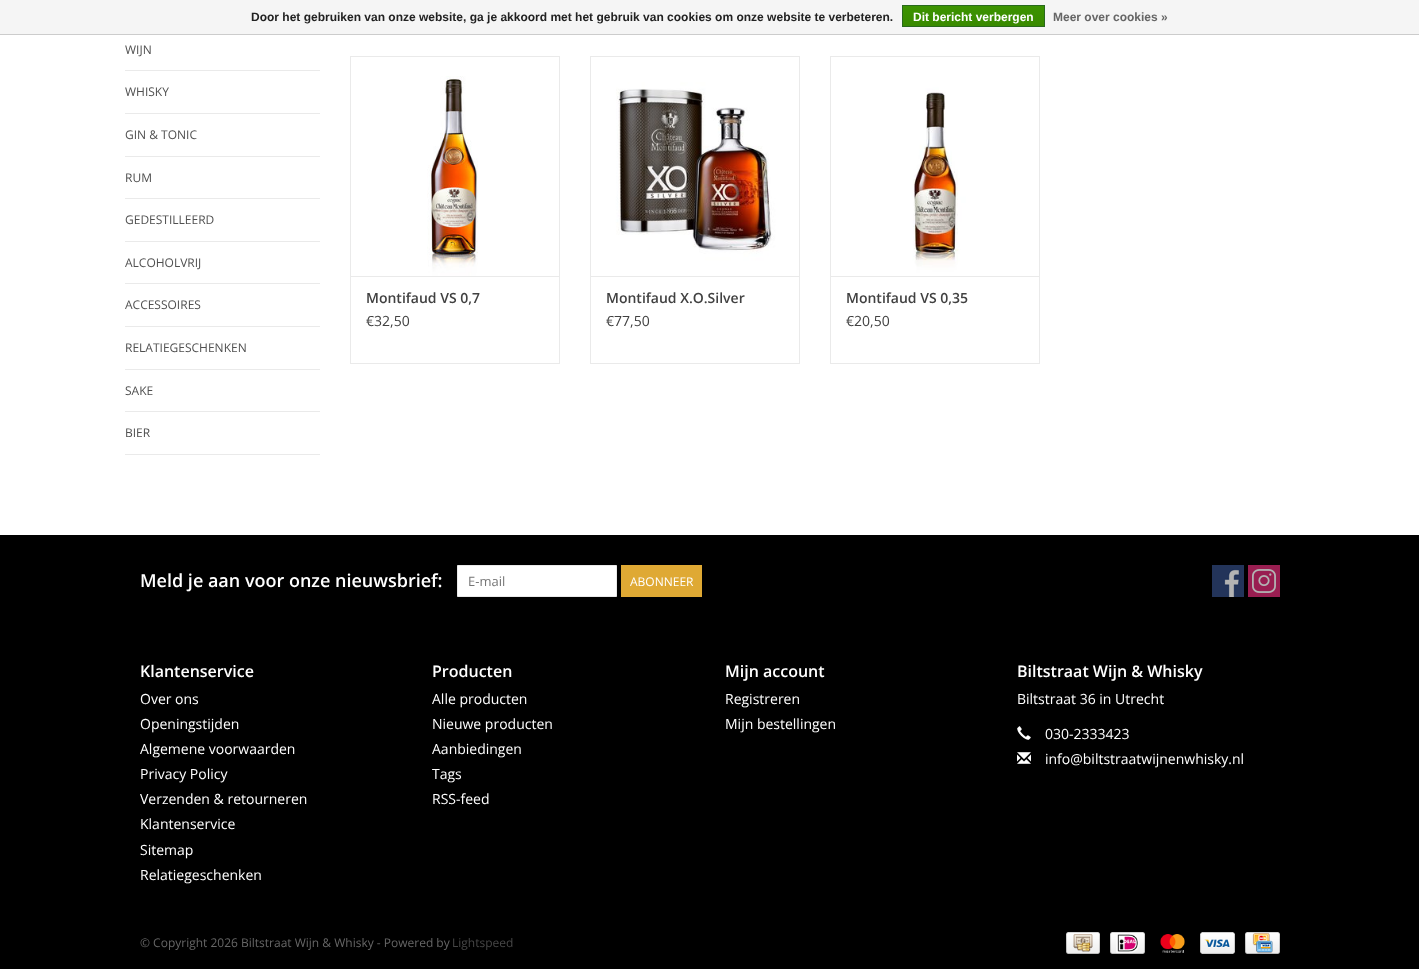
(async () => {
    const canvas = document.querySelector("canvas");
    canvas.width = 1419;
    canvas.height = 969;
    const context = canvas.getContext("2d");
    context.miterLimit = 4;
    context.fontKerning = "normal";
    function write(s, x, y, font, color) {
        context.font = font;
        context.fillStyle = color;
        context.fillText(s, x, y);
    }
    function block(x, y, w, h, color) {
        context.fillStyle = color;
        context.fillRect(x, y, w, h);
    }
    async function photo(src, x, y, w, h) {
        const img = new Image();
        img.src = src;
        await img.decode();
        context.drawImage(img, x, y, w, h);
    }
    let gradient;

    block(0, 0, 1419, 969, "rgb(255, 255, 255)");
    block(0, 0, 1419, 34, "rgb(245, 245, 245)");
    block(0, 34, 1419, 1, "rgb(204, 204, 204)");
    write("Door het gebruiken van onze website, ga je akkoord met het gebruik van cookies om onze website te verbeteren.", 251, 21, "bold 12px Liberation Sans", "rgb(34, 34, 34)");
    gradient = context.createLinearGradient(974, 6, 974, 26);
    gradient.addColorStop(0, "rgb(60, 147, 0)");
    gradient.addColorStop(1, "rgb(57, 138, 0)");
    context.fillStyle = gradient;
    context.fillRect(903, 6, 141, 20);
    context.strokeStyle = "rgb(41, 105, 29)";
    context.strokeRect(902.5, 5.5, 142, 21);
    write("Dit bericht verbergen", 913, 21, "bold 12px Liberation Sans", "rgb(255, 255, 255)");
    write("Meer over cookies »", 1053, 21, "bold 12px Liberation Sans", "rgb(102, 102, 102)");
    block(125, 70, 195, 1, "rgb(234, 234, 234)");
    write("WIJN", 125, 54, "12px Open Sans", "rgb(80, 80, 80)");
    block(125, 113, 195, 1, "rgb(234, 234, 234)");
    write("WHISKY", 125, 96, "12px Open Sans", "rgb(80, 80, 80)");
    block(125, 156, 195, 1, "rgb(234, 234, 234)");
    write("GIN & TONIC", 125, 139, "12px Open Sans", "rgb(80, 80, 80)");
    block(125, 198, 195, 1, "rgb(234, 234, 234)");
    write("RUM", 125, 182, "12px Open Sans", "rgb(80, 80, 80)");
    block(125, 241, 195, 1, "rgb(234, 234, 234)");
    write("GEDESTILLEERD", 125, 224, "12px Open Sans", "rgb(80, 80, 80)");
    block(125, 283, 195, 1, "rgb(234, 234, 234)");
    write("ALCOHOLVRIJ", 125, 267, "12px Open Sans", "rgb(80, 80, 80)");
    block(125, 326, 195, 1, "rgb(234, 234, 234)");
    write("ACCESSOIRES", 125, 309, "12px Open Sans", "rgb(80, 80, 80)");
    block(125, 369, 195, 1, "rgb(234, 234, 234)");
    write("RELATIEGESCHENKEN", 125, 352, "12px Open Sans", "rgb(80, 80, 80)");
    block(125, 411, 195, 1, "rgb(234, 234, 234)");
    write("SAKE", 125, 395, "12px Open Sans", "rgb(80, 80, 80)");
    block(125, 454, 195, 1, "rgb(234, 234, 234)");
    write("BIER", 125, 437, "12px Open Sans", "rgb(80, 80, 80)");
    block(350, 56, 210, 1, "rgb(234, 234, 234)");
    block(559, 56, 1, 220, "rgb(234, 234, 234)");
    block(350, 56, 1, 220, "rgb(234, 234, 234)");
    await photo("media/1.png", 351, 57, 208, 219);
    context.strokeStyle = "rgb(234, 234, 234)";
    context.strokeRect(350.5, 276.5, 209, 87);
    write("Montifaud VS 0,7", 366, 303, "600 14px Open Sans", "rgb(65, 65, 65)");
    write("€32,50", 366, 326, "14px Open Sans", "rgb(65, 65, 65)");
    block(590, 56, 210, 1, "rgb(234, 234, 234)");
    block(799, 56, 1, 220, "rgb(234, 234, 234)");
    block(590, 56, 1, 220, "rgb(234, 234, 234)");
    await photo("media/2.png", 591, 57, 208, 219);
    context.strokeRect(590.5, 276.5, 209, 87);
    write("Montifaud X.O.Silver", 606, 303, "600 14px Open Sans", "rgb(65, 65, 65)");
    write("€77,50", 606, 326, "14px Open Sans", "rgb(65, 65, 65)");
    block(830, 56, 210, 1, "rgb(234, 234, 234)");
    block(1039, 56, 1, 220, "rgb(234, 234, 234)");
    block(830, 56, 1, 220, "rgb(234, 234, 234)");
    await photo("media/3.png", 831, 57, 208, 219);
    context.strokeRect(830.5, 276.5, 209, 87);
    write("Montifaud VS 0,35", 846, 303, "600 14px Open Sans", "rgb(65, 65, 65)");
    write("€20,50", 846, 326, "14px Open Sans", "rgb(65, 65, 65)");
    block(0, 535, 1419, 434, "rgb(0, 0, 0)");
    write("Meld je aan voor onze nieuwsbrief:", 140, 587, "600 18px Open Sans", "rgb(255, 255, 255)");
    context.beginPath();
    context.rect(457.5, 565.5, 159, 31);
    context.fill();
    context.strokeStyle = "rgb(233, 233, 233)";
    context.stroke();
    write("E-mail", 468, 586, "13px Open Sans", "rgb(117, 117, 117)");
    block(621, 565, 81, 32, "rgb(223, 169, 52)");
    write("ABONNEER", 630, 586, "12px Open Sans", "rgb(255, 255, 255)");
    await photo("media/4.png", 1212, 565, 32, 32);
    await photo("media/5.png", 1248, 565, 32, 32);
    write("Klantenservice", 140, 677, "600 16px Open Sans", "rgb(255, 255, 255)");
    write("Over ons", 140, 704, "14px Open Sans", "rgb(255, 255, 255)");
    write("Openingstijden", 140, 729, "14px Open Sans", "rgb(255, 255, 255)");
    write("Algemene voorwaarden", 140, 754, "14px Open Sans", "rgb(255, 255, 255)");
    write("Privacy Policy", 140, 779, "14px Open Sans", "rgb(255, 255, 255)");
    write("Verzenden & retourneren", 140, 804, "14px Open Sans", "rgb(255, 255, 255)");
    write("Klantenservice", 140, 829, "14px Open Sans", "rgb(255, 255, 255)");
    write("Sitemap", 140, 855, "14px Open Sans", "rgb(255, 255, 255)");
    write("Relatiegeschenken", 140, 880, "14px Open Sans", "rgb(255, 255, 255)");
    write("Producten", 432, 677, "600 16px Open Sans", "rgb(255, 255, 255)");
    write("Alle producten", 432, 704, "14px Open Sans", "rgb(255, 255, 255)");
    write("Nieuwe producten", 432, 729, "14px Open Sans", "rgb(255, 255, 255)");
    write("Aanbiedingen", 432, 754, "14px Open Sans", "rgb(255, 255, 255)");
    write("Tags", 432, 779, "14px Open Sans", "rgb(255, 255, 255)");
    write("RSS-feed", 432, 804, "14px Open Sans", "rgb(255, 255, 255)");
    write("Mijn account", 725, 677, "600 16px Open Sans", "rgb(255, 255, 255)");
    write("Registreren", 725, 704, "14px Open Sans", "rgb(255, 255, 255)");
    write("Mijn bestellingen", 725, 729, "14px Open Sans", "rgb(255, 255, 255)");
    write("Biltstraat Wijn & Whisky", 1017, 677, "600 16px Open Sans", "rgb(255, 255, 255)");
    write("Biltstraat 36 in Utrecht", 1017, 704, "14px Open Sans", "rgb(255, 255, 255)");
    await photo("media/6.png", 1017, 726, 14, 14);
    write("030-2333423", 1045, 739, "14px Open Sans", "rgb(255, 255, 255)");
    await photo("media/7.png", 1017, 752, 14, 12);
    write("info@biltstraatwijnenwhisky.nl", 1045, 764, "14px Open Sans", "rgb(255, 255, 255)");
    write("© Copyright 2026 Biltstraat Wijn & Whisky - Powered by", 140, 947, "12px Open Sans", "rgb(102, 102, 102)");
    write("Lightspeed", 452, 947, "12px Open Sans", "rgb(71, 71, 71)");
    await photo("media/8.png", 1066, 932, 34, 22);
    await photo("media/9.png", 1110, 932, 35, 22);
    await photo("media/10.png", 1160, 934, 25, 19);
    await photo("media/11.png", 1200, 932, 35, 22);
    await photo("media/12.png", 1245, 932, 35, 22);
})();
